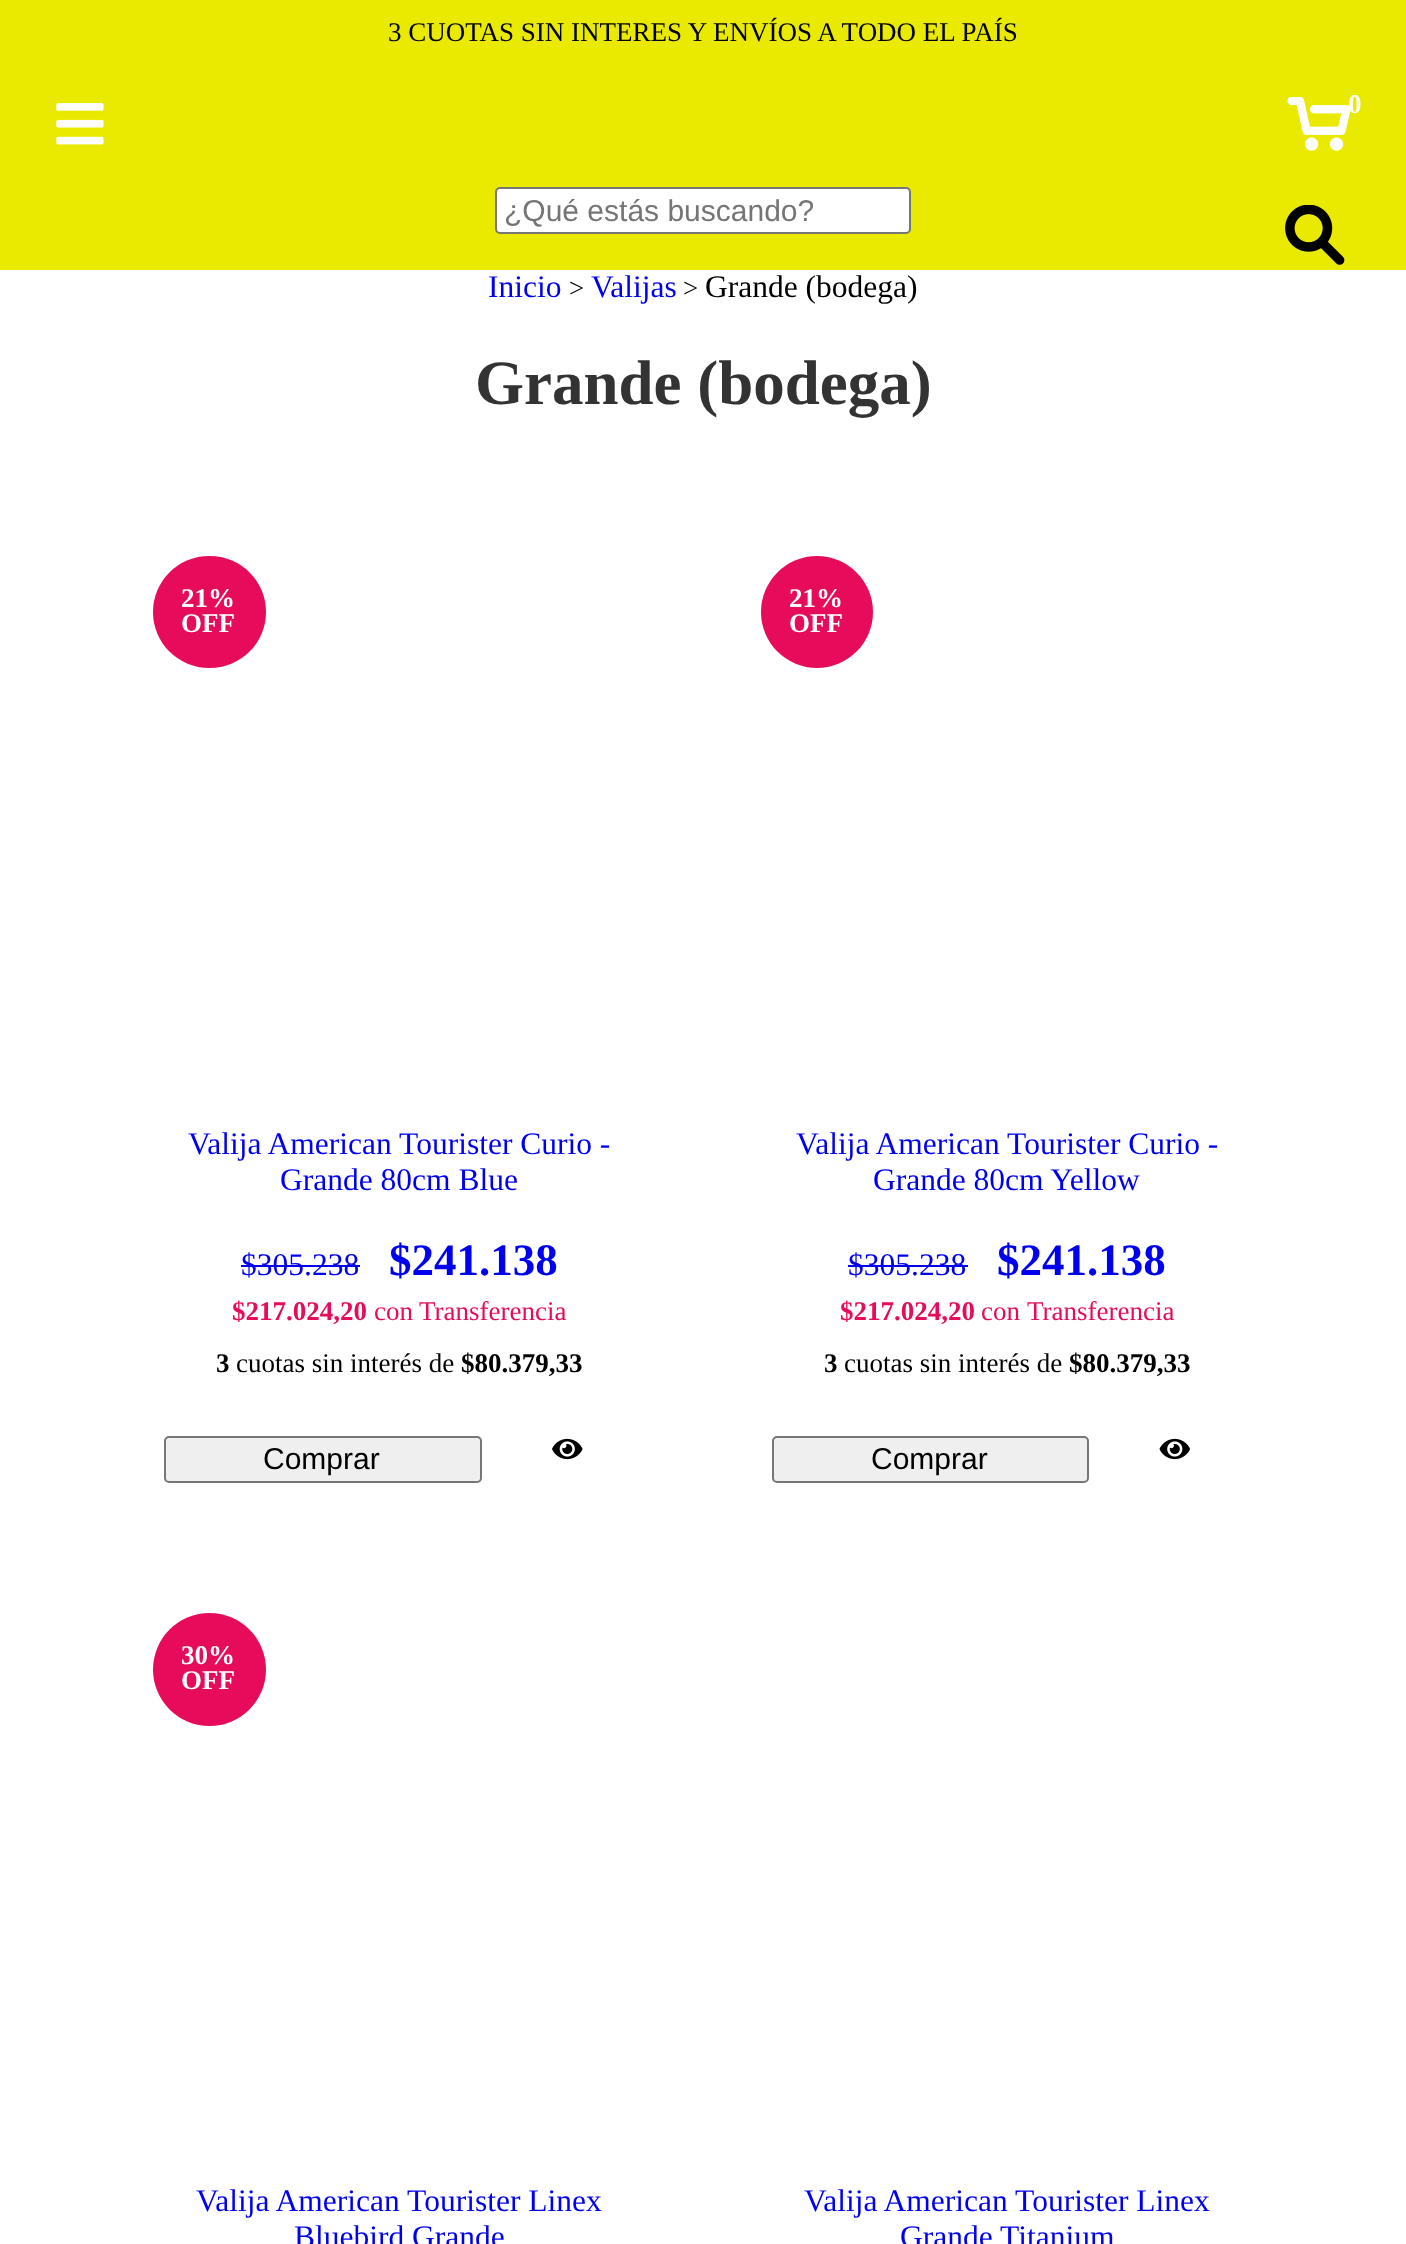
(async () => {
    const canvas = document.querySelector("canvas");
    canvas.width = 1406;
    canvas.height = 2244;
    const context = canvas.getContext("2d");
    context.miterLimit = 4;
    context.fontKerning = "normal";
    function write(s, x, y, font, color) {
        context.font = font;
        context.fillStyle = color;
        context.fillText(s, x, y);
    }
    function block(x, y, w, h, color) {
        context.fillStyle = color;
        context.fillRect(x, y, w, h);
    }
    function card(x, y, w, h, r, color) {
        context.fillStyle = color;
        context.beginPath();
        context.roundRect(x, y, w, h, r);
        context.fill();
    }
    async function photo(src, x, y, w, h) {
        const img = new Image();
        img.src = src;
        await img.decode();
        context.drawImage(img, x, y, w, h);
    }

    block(0, 0, 1406, 2244, "rgb(255, 255, 255)");
    block(0, 0, 1406, 270, "rgb(234, 234, 0)");
    write("3 CUOTAS SIN INTERES Y ENVÍOS A TODO EL PAÍS", 388, 41, "27px Liberation Serif", "rgb(0, 0, 0)");
    await photo("media/1.png", 56, 103, 48, 42);
    await photo("media/2.png", 1287, 97, 64, 54);
    write("0", 1348, 113, "bold 27px Liberation Serif", "rgb(255, 255, 255)");
    context.beginPath();
    context.roundRect(496, 188, 414, 45, 4);
    context.fill();
    context.strokeStyle = "rgb(118, 118, 118)";
    context.lineWidth = 2;
    context.stroke();
    write("¿Qué estás buscando?", 504, 221, "30px Liberation Sans", "rgb(117, 117, 117)");
    await photo("media/3.png", 1285, 205, 60, 60);
    write("Inicio", 488, 297, "31.5px Liberation Serif", "rgb(0, 0, 238)");
    write(">", 569, 297, "27px Liberation Serif", "rgb(0, 0, 0)");
    write("Valijas", 591, 297, "31.5px Liberation Serif", "rgb(0, 0, 238)");
    write(">", 683, 297, "27px Liberation Serif", "rgb(0, 0, 0)");
    write("Grande (bodega)", 705, 297, "31.5px Liberation Serif", "rgb(0, 0, 0)");
    write("Grande (bodega)", 475, 404, "bold 63px Liberation Serif", "rgb(51, 51, 51)");
    card(153, 556, 113, 112, 56, "rgb(231, 12, 91)");
    write("21%", 181, 607, "bold 27px Liberation Serif", "rgb(255, 255, 255)");
    write("OFF", 181, 632, "bold 27px Liberation Serif", "rgb(255, 255, 255)");
    write("Valija American Tourister Curio -", 188, 1154, "31.5px Liberation Serif", "rgb(0, 0, 238)");
    write("Grande 80cm Blue", 280, 1190, "31.5px Liberation Serif", "rgb(0, 0, 238)");
    write("$305.238", 241, 1275, "31.5px Liberation Serif", "rgb(0, 0, 238)");
    block(241, 1265, 119, 2, "rgb(0, 0, 238)");
    write("$241.138", 389, 1275, "bold 45px Liberation Serif", "rgb(0, 0, 238)");
    write("$217.024,20", 232, 1320, "bold 27px Liberation Serif", "rgb(231, 12, 91)");
    write("con", 374, 1320, "27px Liberation Serif", "rgb(231, 12, 91)");
    write("Transferencia", 419, 1320, "27px Liberation Serif", "rgb(231, 12, 91)");
    write("3", 216, 1372, "bold 27px Liberation Serif", "rgb(0, 0, 0)");
    write("cuotas sin interés de", 236, 1372, "27px Liberation Serif", "rgb(0, 0, 0)");
    write("$80.379,33", 461, 1372, "bold 27px Liberation Serif", "rgb(0, 0, 0)");
    context.fillStyle = "rgb(239, 239, 239)";
    context.beginPath();
    context.roundRect(165, 1437, 316, 45, 4);
    context.fill();
    context.stroke();
    write("Comprar", 263, 1469, "30px Liberation Sans", "rgb(0, 0, 0)");
    await photo("media/4.png", 552, 1438, 31, 22);
    context.fillStyle = "rgb(231, 12, 91)";
    context.beginPath();
    context.arc(817, 612, 56, 0, Math.PI * 2);
    context.fill();
    write("21%", 789, 607, "bold 27px Liberation Serif", "rgb(255, 255, 255)");
    write("OFF", 789, 632, "bold 27px Liberation Serif", "rgb(255, 255, 255)");
    write("Valija American Tourister Curio -", 796, 1154, "31.5px Liberation Serif", "rgb(0, 0, 238)");
    write("Grande 80cm Yellow", 873, 1190, "31.5px Liberation Serif", "rgb(0, 0, 238)");
    write("$305.238", 848, 1275, "31.5px Liberation Serif", "rgb(0, 0, 238)");
    block(848, 1265, 120, 2, "rgb(0, 0, 238)");
    write("$241.138", 997, 1275, "bold 45px Liberation Serif", "rgb(0, 0, 238)");
    write("$217.024,20", 840, 1320, "bold 27px Liberation Serif", "rgb(231, 12, 91)");
    write("con", 981, 1320, "27px Liberation Serif", "rgb(231, 12, 91)");
    write("Transferencia", 1027, 1320, "27px Liberation Serif", "rgb(231, 12, 91)");
    write("3", 824, 1372, "bold 27px Liberation Serif", "rgb(0, 0, 0)");
    write("cuotas sin interés de", 844, 1372, "27px Liberation Serif", "rgb(0, 0, 0)");
    write("$80.379,33", 1069, 1372, "bold 27px Liberation Serif", "rgb(0, 0, 0)");
    context.fillStyle = "rgb(239, 239, 239)";
    context.beginPath();
    context.roundRect(773, 1437, 315, 45, 4);
    context.fill();
    context.stroke();
    write("Comprar", 871, 1469, "30px Liberation Sans", "rgb(0, 0, 0)");
    await photo("media/5.png", 1159, 1438, 31, 22);
    context.fillStyle = "rgb(231, 12, 91)";
    context.beginPath();
    context.arc(209.5, 1669.5, 56.5, 0, Math.PI * 2);
    context.fill();
    write("30%", 181, 1664, "bold 27px Liberation Serif", "rgb(255, 255, 255)");
    write("OFF", 181, 1689, "bold 27px Liberation Serif", "rgb(255, 255, 255)");
    write("Valija American Tourister Linex", 196, 2211, "31.5px Liberation Serif", "rgb(0, 0, 238)");
    write("Bluebird Grande", 294, 2247, "31.5px Liberation Serif", "rgb(0, 0, 238)");
    write("Valija American Tourister Linex", 804, 2211, "31.5px Liberation Serif", "rgb(0, 0, 238)");
    write("Grande Titanium", 900, 2247, "31.5px Liberation Serif", "rgb(0, 0, 238)");
})();
